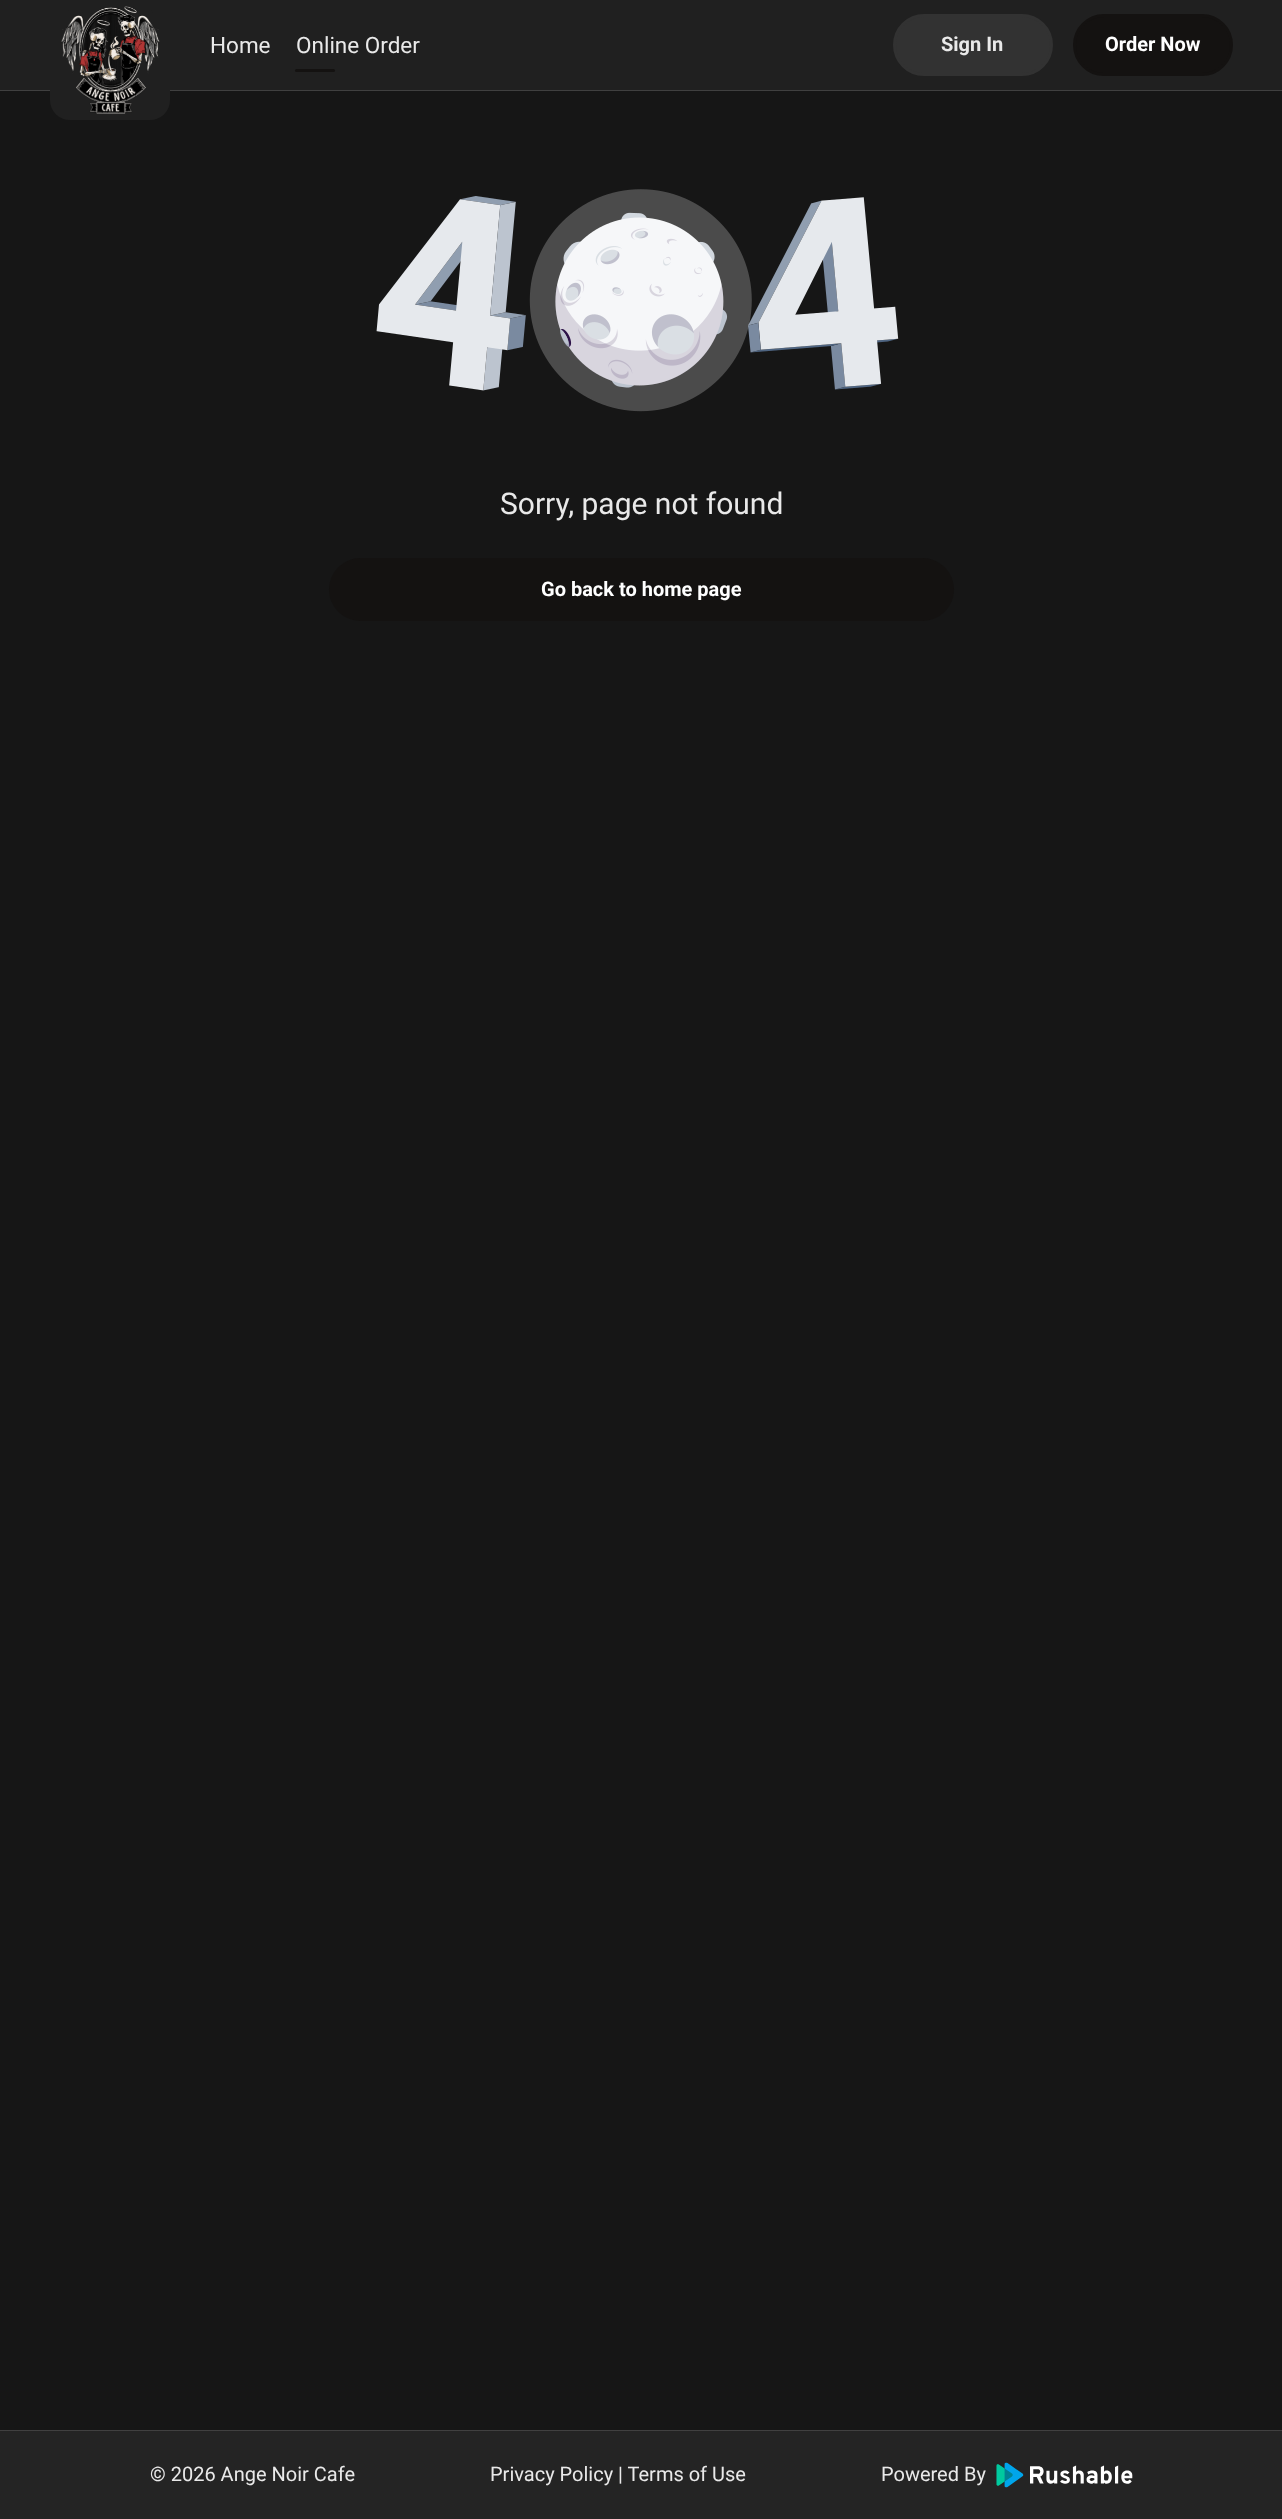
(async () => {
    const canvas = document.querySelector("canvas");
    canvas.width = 1282;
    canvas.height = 2519;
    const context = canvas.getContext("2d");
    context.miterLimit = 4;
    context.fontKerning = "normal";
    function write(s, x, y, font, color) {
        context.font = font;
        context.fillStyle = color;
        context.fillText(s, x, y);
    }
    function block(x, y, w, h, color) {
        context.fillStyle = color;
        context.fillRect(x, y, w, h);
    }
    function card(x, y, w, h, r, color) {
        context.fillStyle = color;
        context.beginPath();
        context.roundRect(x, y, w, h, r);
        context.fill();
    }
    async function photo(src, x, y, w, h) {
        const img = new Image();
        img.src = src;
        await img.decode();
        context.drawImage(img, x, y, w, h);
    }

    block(0, 0, 1282, 2519, "rgb(22, 22, 22)");
    block(0, 0, 1282, 90, "rgb(32, 32, 32)");
    block(0, 90, 1282, 1, "rgb(64, 64, 64)");
    context.fillStyle = "rgb(32, 32, 32)";
    context.beginPath();
    context.roundRect(50, 0, 120, 120, [0, 0, 20, 20]);
    context.fill();
    await photo("media/1.png", 61, 6, 99, 108);
    write("Home", 210, 53, "22.5px Roboto", "rgb(233, 233, 233)");
    write("Online Order", 296, 53, "22.5px Roboto", "rgb(233, 233, 233)");
    card(295, 69, 40, 3, 1.5, "rgb(20, 18, 17)");
    context.fillStyle = "rgb(50, 50, 50)";
    context.beginPath();
    context.roundRect(894.5, 15.5, 157, 59, 29.5);
    context.fill();
    context.strokeStyle = "rgb(50, 50, 50)";
    context.lineWidth = 3;
    context.stroke();
    write("Sign In", 941, 51, "bold 20px Roboto", "rgb(233, 233, 233)");
    context.fillStyle = "rgb(20, 18, 17)";
    context.beginPath();
    context.roundRect(1074.5, 15.5, 157, 59, 29.5);
    context.fill();
    context.strokeStyle = "rgb(20, 18, 17)";
    context.stroke();
    write("Order Now", 1105, 51, "bold 20px Roboto", "rgb(255, 255, 255)");
    await photo("media/2.png", 376, 189, 523, 223);
    write("Sorry, page not found", 500, 514, "30px Roboto", "rgb(233, 233, 233)");
    card(329, 558, 625, 63, 31.5, "rgb(20, 18, 17)");
    write("Go back to home page", 541, 596, "bold 20px Roboto", "rgb(255, 255, 255)");
    block(0, 2431, 1282, 88, "rgb(36, 36, 36)");
    block(0, 2430, 1282, 1, "rgb(64, 64, 64)");
    write("© 2026 Ange Noir Cafe", 150, 2481, "20px Roboto", "rgb(233, 233, 233)");
    write("Privacy Policy | Terms of Use", 490, 2481, "20px Roboto", "rgb(233, 233, 233)");
    write("Powered By", 881, 2481, "20px Roboto", "rgb(233, 233, 233)");
    await photo("media/3.png", 996, 2462, 137, 26);
})();
